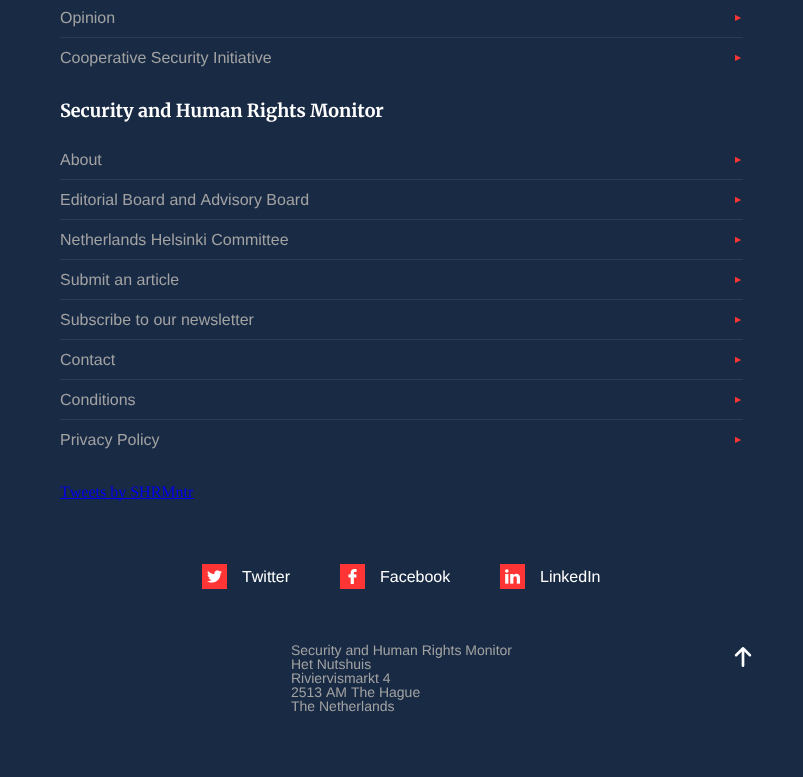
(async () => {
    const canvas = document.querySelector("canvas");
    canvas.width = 803;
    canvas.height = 777;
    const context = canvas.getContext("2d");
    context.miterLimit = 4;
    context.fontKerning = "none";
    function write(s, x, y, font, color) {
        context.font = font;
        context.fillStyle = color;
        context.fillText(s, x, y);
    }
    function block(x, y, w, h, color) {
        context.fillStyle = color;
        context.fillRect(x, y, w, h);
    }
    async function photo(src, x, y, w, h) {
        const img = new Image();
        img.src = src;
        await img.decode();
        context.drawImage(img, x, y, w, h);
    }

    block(0, 0, 803, 777, "rgb(24, 42, 68)");
    block(60, 37, 683, 1, "rgb(42, 59, 83)");
    write("Opinion", 60, 23, "16px Liberation Sans", "rgb(162, 162, 162)");
    write("▶︎", 735, 20, "8px DejaVu Sans", "rgb(255, 53, 53)");
    write("Cooperative Security Initiative", 60, 63, "16px Liberation Sans", "rgb(162, 162, 162)");
    write("▶︎", 735, 60, "8px DejaVu Sans", "rgb(255, 53, 53)");
    write("Security and Human Rights Monitor", 60, 117, "300 18px Merriweather", "rgb(255, 255, 255)");
    block(60, 179, 683, 1, "rgb(42, 59, 83)");
    write("About", 60, 165, "16px Liberation Sans", "rgb(162, 162, 162)");
    write("▶︎", 735, 162, "8px DejaVu Sans", "rgb(255, 53, 53)");
    block(60, 219, 683, 1, "rgb(42, 59, 83)");
    write("Editorial Board and Advisory Board", 60, 205, "16px Liberation Sans", "rgb(162, 162, 162)");
    write("▶︎", 735, 202, "8px DejaVu Sans", "rgb(255, 53, 53)");
    block(60, 259, 683, 1, "rgb(42, 59, 83)");
    write("Netherlands Helsinki Committee", 60, 245, "16px Liberation Sans", "rgb(162, 162, 162)");
    write("▶︎", 735, 242, "8px DejaVu Sans", "rgb(255, 53, 53)");
    block(60, 299, 683, 1, "rgb(42, 59, 83)");
    write("Submit an article", 60, 285, "16px Liberation Sans", "rgb(162, 162, 162)");
    write("▶︎", 735, 282, "8px DejaVu Sans", "rgb(255, 53, 53)");
    block(60, 339, 683, 1, "rgb(42, 59, 83)");
    write("Subscribe to our newsletter", 60, 325, "16px Liberation Sans", "rgb(162, 162, 162)");
    write("▶︎", 735, 322, "8px DejaVu Sans", "rgb(255, 53, 53)");
    block(60, 379, 683, 1, "rgb(42, 59, 83)");
    write("Contact", 60, 365, "16px Liberation Sans", "rgb(162, 162, 162)");
    write("▶︎", 735, 362, "8px DejaVu Sans", "rgb(255, 53, 53)");
    block(60, 419, 683, 1, "rgb(42, 59, 83)");
    write("Conditions", 60, 405, "16px Liberation Sans", "rgb(162, 162, 162)");
    write("▶︎", 735, 402, "8px DejaVu Sans", "rgb(255, 53, 53)");
    write("Privacy Policy", 60, 445, "16px Liberation Sans", "rgb(162, 162, 162)");
    write("▶︎", 735, 442, "8px DejaVu Sans", "rgb(255, 53, 53)");
    block(60, 498, 134, 1, "rgb(0, 0, 238)");
    write("Tweets by SHRMntr", 60, 497, "16px Liberation Serif", "rgb(0, 0, 238)");
    block(202, 564, 25, 25, "rgb(255, 53, 53)");
    await photo("media/1.png", 207, 570, 15, 13);
    write("Twitter", 242, 582, "16px Liberation Sans", "rgb(255, 255, 255)");
    block(340, 564, 25, 25, "rgb(255, 53, 53)");
    await photo("media/2.png", 348, 569, 9, 15);
    write("Facebook", 380, 582, "16px Liberation Sans", "rgb(255, 255, 255)");
    block(500, 564, 25, 25, "rgb(255, 53, 53)");
    await photo("media/3.png", 505, 569, 15, 15);
    write("LinkedIn", 540, 582, "16px Liberation Sans", "rgb(255, 255, 255)");
    write("Security and Human Rights Monitor", 291, 655, "14px Liberation Sans", "rgb(162, 162, 162)");
    write("Het Nutshuis", 291, 669, "14px Liberation Sans", "rgb(162, 162, 162)");
    write("Riviervismarkt 4", 291, 683, "14px Liberation Sans", "rgb(162, 162, 162)");
    write("2513 AM The Hague", 291, 697, "14px Liberation Sans", "rgb(162, 162, 162)");
    write("The Netherlands", 291, 711, "14px Liberation Sans", "rgb(162, 162, 162)");
    await photo("media/4.png", 734, 647, 18, 20);
})();
